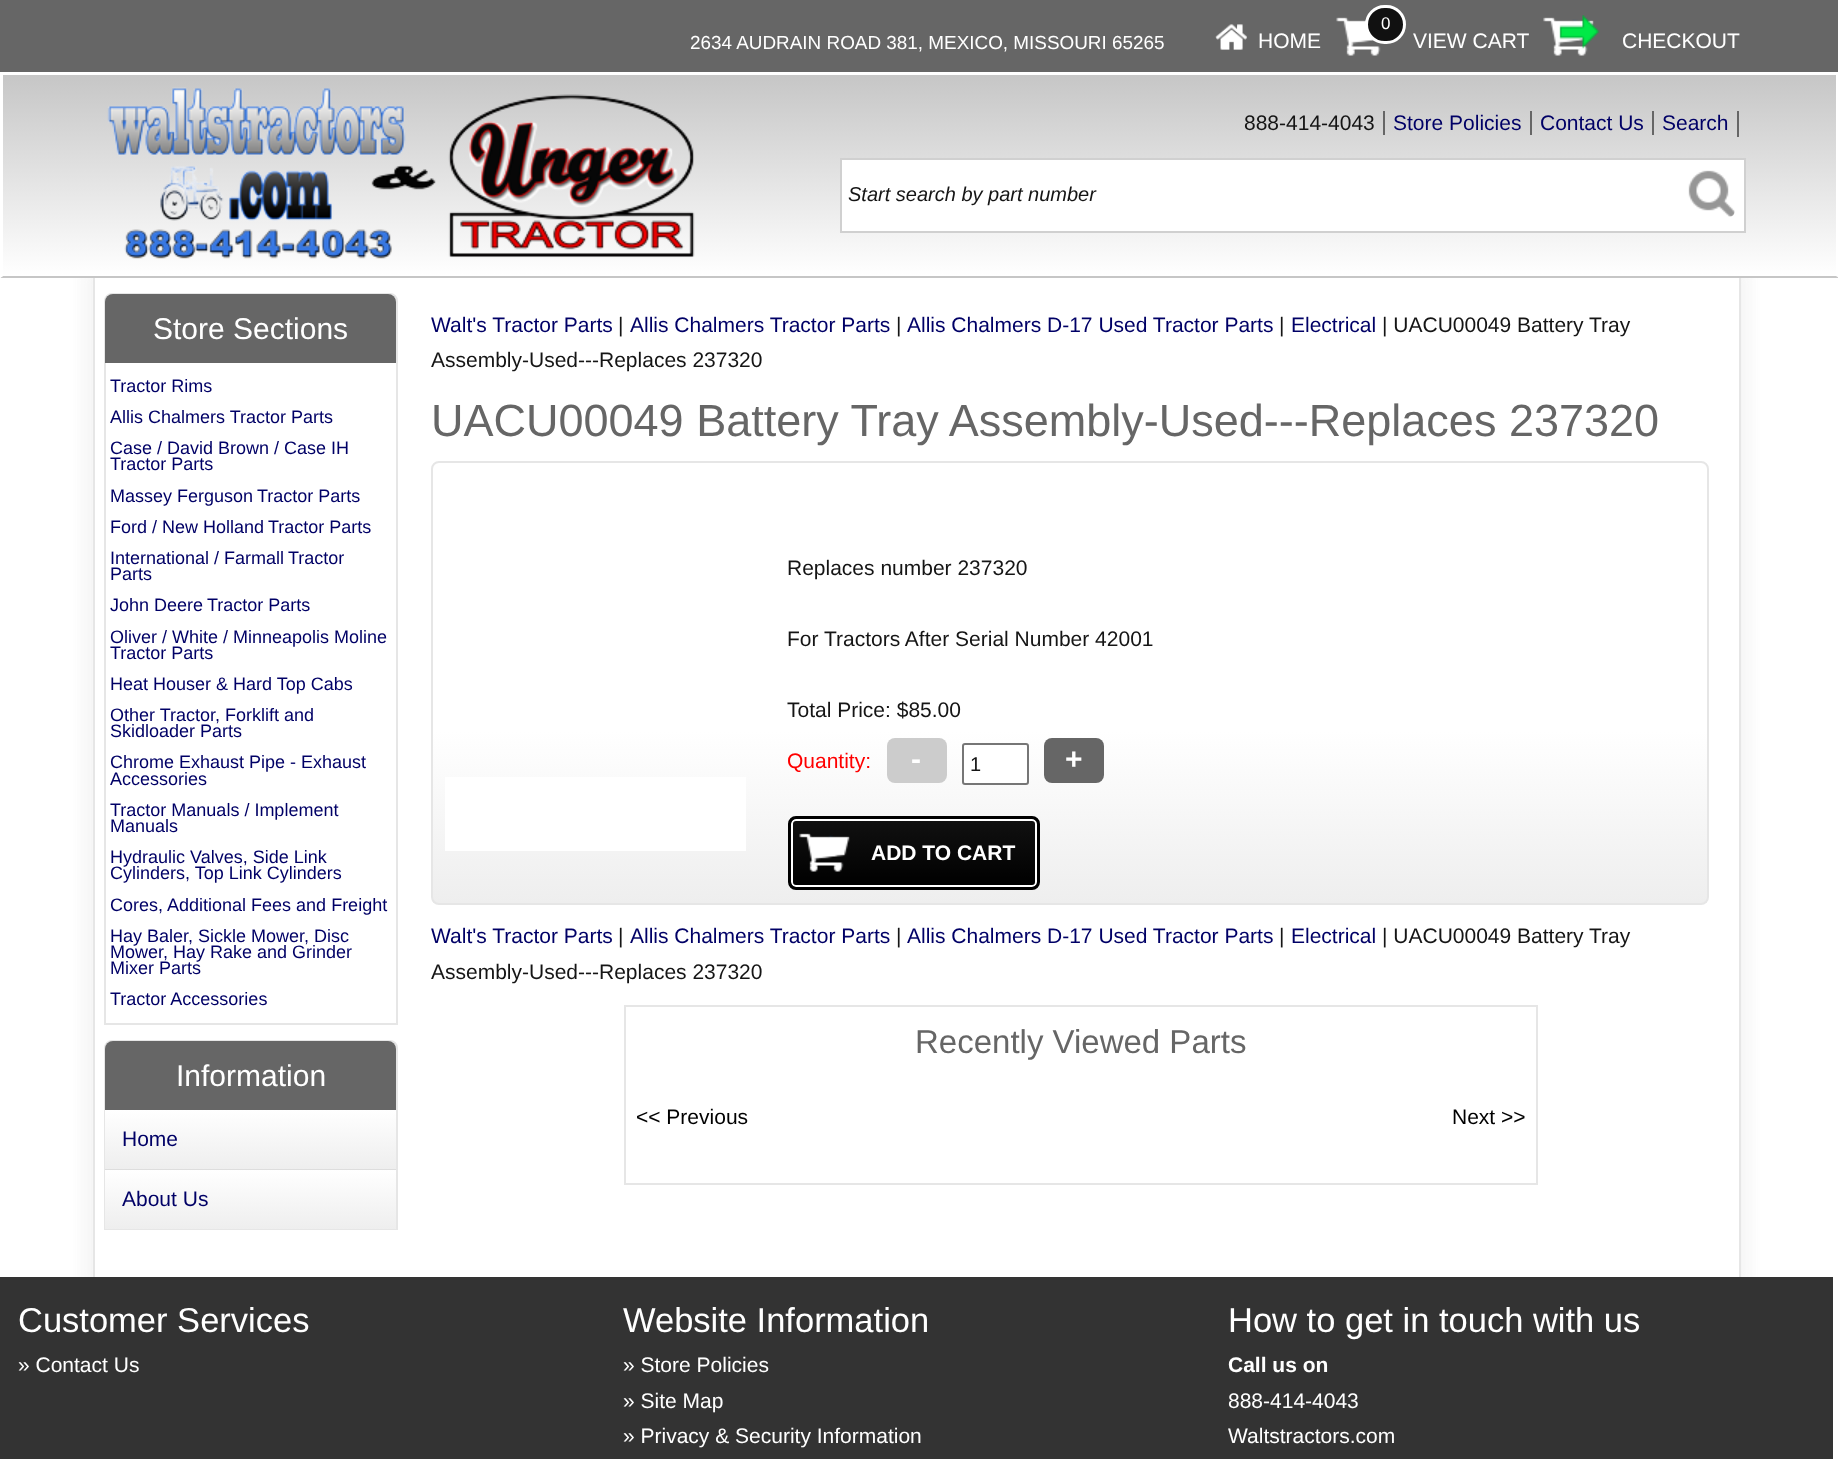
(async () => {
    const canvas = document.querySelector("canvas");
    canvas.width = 1838;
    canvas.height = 1459;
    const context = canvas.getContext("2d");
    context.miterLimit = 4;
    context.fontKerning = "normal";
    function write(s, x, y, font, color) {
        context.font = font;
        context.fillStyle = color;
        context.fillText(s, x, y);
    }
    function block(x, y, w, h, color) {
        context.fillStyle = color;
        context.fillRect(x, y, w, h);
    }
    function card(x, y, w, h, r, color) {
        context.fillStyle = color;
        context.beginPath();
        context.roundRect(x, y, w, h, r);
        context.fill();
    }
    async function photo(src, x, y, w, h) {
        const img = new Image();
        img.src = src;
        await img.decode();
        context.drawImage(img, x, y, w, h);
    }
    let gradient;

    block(0, 0, 1838, 1459, "rgb(255, 255, 255)");
    gradient = context.createLinearGradient(919, 0, 920, 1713);
    gradient.addColorStop(0.05, "rgb(102, 102, 102)");
    gradient.addColorStop(0.14, "rgb(255, 255, 255)");
    gradient.addColorStop(1, "rgb(255, 255, 255)");
    context.fillStyle = gradient;
    context.fillRect(0, 0, 1838, 238);
    write("2634 AUDRAIN ROAD 381, MEXICO, MISSOURI 65265", 690, 49, "18.9px Liberation Sans", "rgb(255, 255, 255)");
    await photo("media/1.png", 1215, 24, 32, 26);
    write("HOME", 1258, 48, "21px Liberation Sans", "rgb(255, 255, 255)");
    await photo("media/2.png", 1336, 17, 45, 39);
    context.fillStyle = "rgb(17, 17, 17)";
    context.beginPath();
    context.roundRect(1366.5, 6.5, 38, 36, 18);
    context.fill();
    context.strokeStyle = "rgb(255, 255, 255)";
    context.lineWidth = 3;
    context.stroke();
    write("0", 1381, 29, "17px Liberation Sans", "rgb(255, 255, 255)");
    write("VIEW CART", 1413, 48, "21px Liberation Sans", "rgb(255, 255, 255)");
    await photo("media/3.png", 1543, 15, 57, 41);
    write("CHECKOUT", 1622, 48, "21px Liberation Sans", "rgb(255, 255, 255)");
    context.fillStyle = "rgb(244, 244, 244)";
    context.filter = "blur(7.5px)";
    context.beginPath();
    context.rect(84, 269, 1665, 1017);
    context.fill();
    context.filter = "none";
    gradient = context.createLinearGradient(920, 75, 920, 276);
    gradient.addColorStop(0, "rgb(198, 198, 198)");
    gradient.addColorStop(1, "rgb(255, 255, 255)");
    context.fillStyle = gradient;
    context.fillRect(3, 75, 1833, 201);
    block(0, 72, 1838, 3, "rgb(255, 255, 255)");
    context.beginPath();
    context.moveTo(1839, 72);
    context.lineTo(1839, 278);
    context.lineTo(1836, 276);
    context.lineTo(1836, 75);
    context.closePath();
    context.fill();
    context.fillStyle = "rgb(198, 198, 198)";
    context.beginPath();
    context.moveTo(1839, 278);
    context.lineTo(0, 278);
    context.lineTo(3, 276);
    context.lineTo(1836, 276);
    context.closePath();
    context.fill();
    context.fillStyle = "rgb(255, 255, 255)";
    context.beginPath();
    context.moveTo(0, 278);
    context.lineTo(0, 72);
    context.lineTo(3, 75);
    context.lineTo(3, 276);
    context.closePath();
    context.fill();
    await photo("media/4.png", 107, 87, 588, 172);
    block(1737, 111, 2, 26, "rgb(102, 102, 102)");
    write("888-414-4043", 1244, 130, "21px Liberation Sans", "rgb(21, 21, 21)");
    write("Store Policies", 1393, 130, "21px Liberation Sans", "rgb(0, 0, 102)");
    block(1383, 111, 2, 24, "rgb(102, 102, 102)");
    write("Contact Us", 1540, 130, "21px Liberation Sans", "rgb(0, 0, 102)");
    block(1530, 111, 2, 24, "rgb(102, 102, 102)");
    write("Search", 1662, 130, "21px Liberation Sans", "rgb(0, 0, 102)");
    block(1652, 111, 2, 24, "rgb(102, 102, 102)");
    context.fillStyle = "rgb(255, 255, 255)";
    context.beginPath();
    context.rect(841, 159, 904, 73);
    context.fill();
    context.strokeStyle = "rgb(208, 208, 208)";
    context.lineWidth = 2;
    context.stroke();
    write("Start search by part number", 848, 201, "italic 20px Liberation Sans", "rgb(21, 21, 21)");
    await photo("media/5.png", 1688, 170, 48, 48);
    context.beginPath();
    context.roundRect(1686, 168, 50, 50, 7);
    context.strokeStyle = "rgb(255, 255, 255)";
    context.stroke();
    block(95, 278, 1644, 999, "rgb(255, 255, 255)");
    block(1739, 278, 2, 999, "rgb(230, 230, 230)");
    block(93, 278, 2, 999, "rgb(230, 230, 230)");
    context.beginPath();
    context.roundRect(105, 294, 292, 730, [7, 7, 0, 0]);
    context.strokeStyle = "rgb(230, 230, 230)";
    context.stroke();
    context.fillStyle = "rgb(102, 102, 102)";
    context.beginPath();
    context.roundRect(105, 294, 291, 69, [8, 8, 0, 0]);
    context.fill();
    write("Store Sections", 153, 339, "30px Liberation Sans", "rgb(255, 255, 255)");
    write("Tractor Rims", 110, 392, "18px Liberation Sans", "rgb(0, 0, 102)");
    write("Allis Chalmers Tractor Parts", 110, 423, "18px Liberation Sans", "rgb(0, 0, 102)");
    write("Case / David Brown / Case IH", 110, 454, "18px Liberation Sans", "rgb(0, 0, 102)");
    write("Tractor Parts", 110, 470, "18px Liberation Sans", "rgb(0, 0, 102)");
    write("Massey Ferguson", 110, 502, "18px Liberation Sans", "rgb(0, 0, 102)");
    write("Tractor Parts", 257, 502, "18px Liberation Sans", "rgb(0, 0, 102)");
    write("Ford / New Holland", 110, 533, "18px Liberation Sans", "rgb(0, 0, 102)");
    write("Tractor Parts", 268, 533, "18px Liberation Sans", "rgb(0, 0, 102)");
    write("International / Farmall", 110, 564, "18px Liberation Sans", "rgb(0, 0, 102)");
    write("Tractor", 288, 564, "18px Liberation Sans", "rgb(0, 0, 102)");
    write("Parts", 110, 580, "18px Liberation Sans", "rgb(0, 0, 102)");
    write("John Deere", 110, 611, "18px Liberation Sans", "rgb(0, 0, 102)");
    write("Tractor Parts", 207, 611, "18px Liberation Sans", "rgb(0, 0, 102)");
    write("Oliver / White / Minneapolis Moline", 110, 643, "18px Liberation Sans", "rgb(0, 0, 102)");
    write("Tractor Parts", 110, 659, "18px Liberation Sans", "rgb(0, 0, 102)");
    write("Heat Houser & Hard Top Cabs", 110, 690, "18px Liberation Sans", "rgb(0, 0, 102)");
    write("Other Tractor, Forklift and", 110, 721, "18px Liberation Sans", "rgb(0, 0, 102)");
    write("Skidloader Parts", 110, 737, "18px Liberation Sans", "rgb(0, 0, 102)");
    write("Chrome Exhaust Pipe - Exhaust", 110, 768, "18px Liberation Sans", "rgb(0, 0, 102)");
    write("Accessories", 110, 785, "18px Liberation Sans", "rgb(0, 0, 102)");
    write("Tractor Manuals / Implement", 110, 816, "18px Liberation Sans", "rgb(0, 0, 102)");
    write("Manuals", 110, 832, "18px Liberation Sans", "rgb(0, 0, 102)");
    write("Hydraulic Valves, Side Link", 110, 863, "18px Liberation Sans", "rgb(0, 0, 102)");
    write("Cylinders, Top Link Cylinders", 110, 879, "18px Liberation Sans", "rgb(0, 0, 102)");
    write("Cores, Additional Fees and Freight", 110, 911, "18px Liberation Sans", "rgb(0, 0, 102)");
    write("Hay Baler, Sickle Mower, Disc", 110, 942, "18px Liberation Sans", "rgb(0, 0, 102)");
    write("Mower, Hay Rake and Grinder", 110, 958, "18px Liberation Sans", "rgb(0, 0, 102)");
    write("Mixer Parts", 110, 974, "18px Liberation Sans", "rgb(0, 0, 102)");
    write("Tractor Accessories", 110, 1005, "18px Liberation Sans", "rgb(0, 0, 102)");
    context.beginPath();
    context.roundRect(105, 1041, 292, 188, [7, 7, 0, 0]);
    context.stroke();
    context.fillStyle = "rgb(102, 102, 102)";
    context.beginPath();
    context.roundRect(105, 1041, 291, 69, [8, 8, 0, 0]);
    context.fill();
    write("Information", 176, 1086, "30px Liberation Sans", "rgb(255, 255, 255)");
    gradient = context.createLinearGradient(251, 1110, 251, 1169);
    gradient.addColorStop(0, "rgb(255, 255, 255)");
    gradient.addColorStop(1, "rgb(238, 238, 238)");
    context.fillStyle = gradient;
    context.fillRect(105, 1110, 291, 59);
    block(105, 1169, 291, 1, "rgb(221, 221, 221)");
    write("Home", 122, 1146, "21px Liberation Sans", "rgb(0, 0, 102)");
    gradient = context.createLinearGradient(251, 1170, 251, 1229);
    gradient.addColorStop(0, "rgb(255, 255, 255)");
    gradient.addColorStop(1, "rgb(238, 238, 238)");
    context.fillStyle = gradient;
    context.fillRect(105, 1170, 291, 59);
    write("About Us", 122, 1206, "21px Liberation Sans", "rgb(0, 0, 102)");
    write("Walt's Tractor Parts", 431, 332, "21px Liberation Sans", "rgb(0, 0, 102)");
    write("|", 618, 332, "21px Liberation Sans", "rgb(21, 21, 21)");
    write("Allis Chalmers Tractor Parts", 630, 332, "21px Liberation Sans", "rgb(0, 0, 102)");
    write("|", 896, 332, "21px Liberation Sans", "rgb(21, 21, 21)");
    write("Allis Chalmers D-17 Used Tractor Parts", 907, 332, "21px Liberation Sans", "rgb(0, 0, 102)");
    write("|", 1279, 332, "21px Liberation Sans", "rgb(21, 21, 21)");
    write("Electrical", 1291, 332, "21px Liberation Sans", "rgb(0, 0, 102)");
    write("| UACU00049 Battery Tray", 1382, 332, "21px Liberation Sans", "rgb(21, 21, 21)");
    write("Assembly-Used---Replaces 237320", 431, 367, "21px Liberation Sans", "rgb(21, 21, 21)");
    write("UACU00049 Battery Tray Assembly-Used---Replaces 237320", 431, 436, "45px Liberation Sans", "rgb(102, 102, 102)");
    context.save();
    context.beginPath();
    context.roundRect(431, 461, 1278, 444, 8);
    context.clip();
    gradient = context.createLinearGradient(1070, 462, 1070, 903);
    gradient.addColorStop(0.61, "rgb(255, 255, 255)");
    gradient.addColorStop(1, "rgb(238, 238, 238)");
    context.fillStyle = gradient;
    context.fillRect(432, 462, 1275, 441);
    context.restore();
    context.beginPath();
    context.roundRect(432, 462, 1276, 442, 7);
    context.stroke();
    block(445, 777, 301, 74, "rgb(255, 255, 255)");
    write("Replaces number 237320", 787, 575, "21px Liberation Sans", "rgb(21, 21, 21)");
    write("For Tractors After Serial Number 42001", 787, 646, "21px Liberation Sans", "rgb(21, 21, 21)");
    write("Total Price: $85.00", 787, 717, "21px Liberation Sans", "rgb(21, 21, 21)");
    write("Quantity:", 787, 768, "21px Liberation Sans", "rgb(255, 0, 0)");
    card(887, 738, 60, 45, 8, "rgb(204, 204, 204)");
    write("-", 911, 769, "bold 30px Liberation Sans", "rgb(255, 255, 255)");
    context.beginPath();
    context.roundRect(963, 744, 65, 40, 2);
    context.fill();
    context.strokeStyle = "rgb(118, 118, 118)";
    context.stroke();
    write("1", 970, 771, "20px Liberation Sans", "rgb(21, 21, 21)");
    card(1044, 738, 60, 45, 8, "rgb(102, 102, 102)");
    write("+", 1065, 769, "bold 30px Liberation Sans", "rgb(255, 255, 255)");
    await photo("media/6.png", 791, 819, 246, 68);
    context.beginPath();
    context.roundRect(792, 820, 244, 66, 4);
    context.strokeStyle = "rgb(255, 255, 255)";
    context.stroke();
    context.beginPath();
    context.roundRect(789.5, 817.5, 249, 71, 6.5);
    context.strokeStyle = "rgb(0, 0, 0)";
    context.lineWidth = 3;
    context.stroke();
    write("ADD TO CART", 871, 860, "bold 21px Liberation Sans", "rgb(255, 255, 255)");
    write("Walt's Tractor Parts", 431, 943, "21px Liberation Sans", "rgb(0, 0, 102)");
    write("|", 618, 943, "21px Liberation Sans", "rgb(21, 21, 21)");
    write("Allis Chalmers Tractor Parts", 630, 943, "21px Liberation Sans", "rgb(0, 0, 102)");
    write("|", 896, 943, "21px Liberation Sans", "rgb(21, 21, 21)");
    write("Allis Chalmers D-17 Used Tractor Parts", 907, 943, "21px Liberation Sans", "rgb(0, 0, 102)");
    write("|", 1279, 943, "21px Liberation Sans", "rgb(21, 21, 21)");
    write("Electrical", 1291, 943, "21px Liberation Sans", "rgb(0, 0, 102)");
    write("| UACU00049 Battery Tray", 1382, 943, "21px Liberation Sans", "rgb(21, 21, 21)");
    write("Assembly-Used---Replaces 237320", 431, 979, "21px Liberation Sans", "rgb(21, 21, 21)");
    context.strokeStyle = "rgb(230, 230, 230)";
    context.lineWidth = 2;
    context.strokeRect(625, 1006, 912, 178);
    write("Recently Viewed Parts", 915, 1053, "33px Liberation Sans", "rgb(102, 102, 102)");
    write("<< Previous", 636, 1124, "21px Liberation Sans", "rgb(0, 0, 0)");
    write("Next >>", 1452, 1124, "21px Liberation Sans", "rgb(0, 0, 0)");
    block(0, 1277, 1833, 182, "rgb(51, 51, 51)");
    write("Customer Services", 18, 1332, "34.5px Liberation Sans", "rgb(255, 255, 255)");
    write("» Contact Us", 18, 1372, "21px Liberation Sans", "rgb(255, 255, 255)");
    write("Website Information", 623, 1332, "34.5px Liberation Sans", "rgb(255, 255, 255)");
    write("» Store Policies", 623, 1372, "21px Liberation Sans", "rgb(255, 255, 255)");
    write("» Site Map", 623, 1408, "21px Liberation Sans", "rgb(255, 255, 255)");
    write("» Privacy & Security Information", 623, 1443, "21px Liberation Sans", "rgb(255, 255, 255)");
    write("How to get in touch with us", 1228, 1332, "34.5px Liberation Sans", "rgb(255, 255, 255)");
    write("Call us on", 1228, 1372, "bold 21px Liberation Sans", "rgb(255, 255, 255)");
    write("888-414-4043", 1228, 1408, "21px Liberation Sans", "rgb(255, 255, 255)");
    write("Waltstractors.com", 1228, 1443, "21px Liberation Sans", "rgb(255, 255, 255)");
})();
